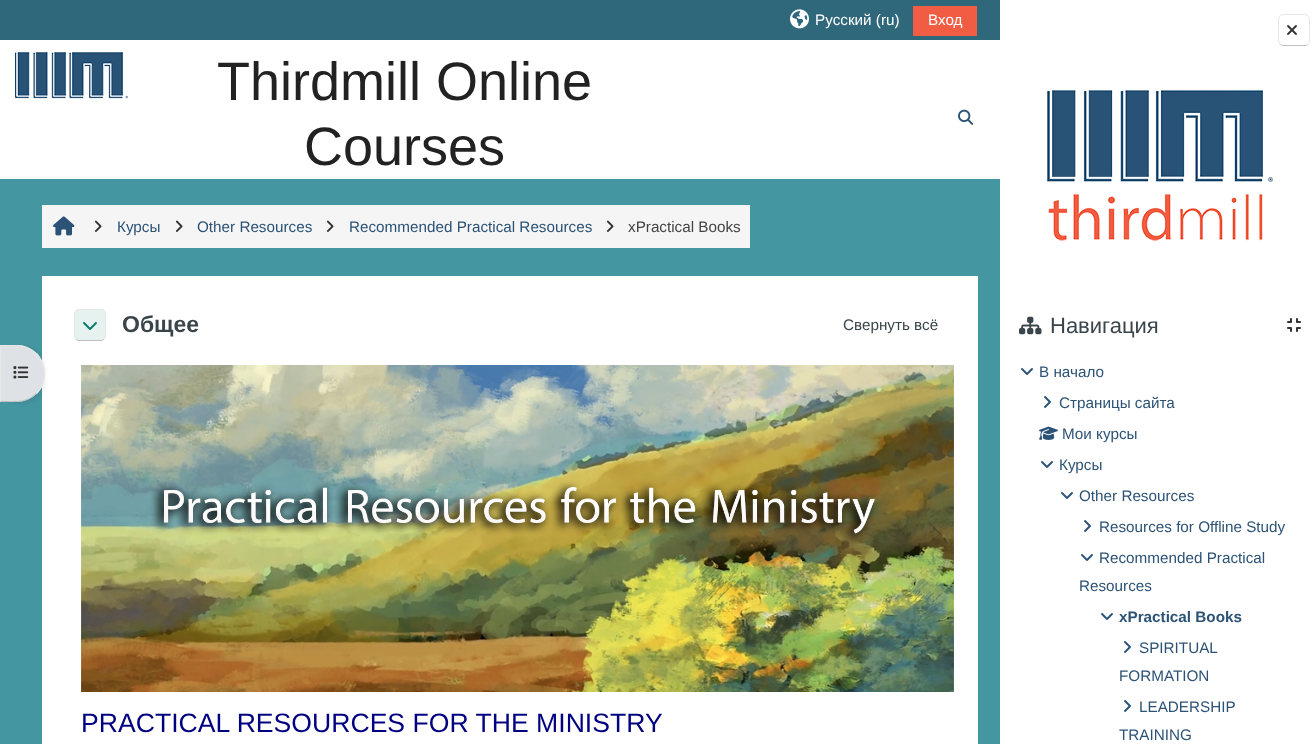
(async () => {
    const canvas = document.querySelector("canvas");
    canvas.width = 1315;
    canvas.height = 744;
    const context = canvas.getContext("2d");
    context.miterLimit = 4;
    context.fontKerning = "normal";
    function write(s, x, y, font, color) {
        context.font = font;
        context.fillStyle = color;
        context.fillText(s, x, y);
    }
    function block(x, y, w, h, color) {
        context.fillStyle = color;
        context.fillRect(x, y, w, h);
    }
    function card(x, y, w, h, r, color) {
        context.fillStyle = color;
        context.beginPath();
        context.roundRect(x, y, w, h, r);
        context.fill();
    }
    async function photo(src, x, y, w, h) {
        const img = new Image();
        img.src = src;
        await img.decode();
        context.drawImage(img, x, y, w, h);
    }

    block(0, 0, 1315, 744, "rgb(68, 150, 161)");
    block(0, 40, 1000, 139, "rgb(255, 255, 255)");
    block(0, 0, 1000, 40, "rgb(47, 104, 122)");
    await photo("media/1.png", 790, 9, 19, 20);
    write("Русский (ru)", 815, 25, "15.25px Liberation Sans", "rgb(255, 255, 255)");
    block(913, 6, 64, 30, "rgb(241, 93, 67)");
    write("Вход", 928, 25, "15.25px Liberation Sans", "rgb(255, 255, 255)");
    await photo("media/2.png", 15, 52, 113, 47);
    write("Thirdmill Online", 217, 100, "54px Liberation Sans", "rgb(34, 34, 34)");
    write("Courses", 304, 165, "54px Liberation Sans", "rgb(34, 34, 34)");
    await photo("media/3.png", 958, 109, 16, 16);
    block(42, 276, 936, 468, "rgb(255, 255, 255)");
    context.fillStyle = "rgba(0, 0, 0, 0.07)";
    context.filter = "blur(2px)";
    context.beginPath();
    context.roundRect(0, 347, 45, 57, 28);
    context.fill();
    context.filter = "none";
    context.fillStyle = "rgb(222, 226, 230)";
    context.beginPath();
    context.roundRect(0, 345, 45, 57, [0, 28, 28, 0]);
    context.fill();
    context.fillStyle = "rgb(230, 230, 230)";
    context.beginPath();
    context.moveTo(0, 345);
    context.lineTo(1, 346);
    context.bezierCurveTo(13.5, 346, 26.5, 344, 36, 354);
    context.lineTo(36.5, 353.5);
    context.bezierCurveTo(31.5, 348, 24.5, 345, 17, 345);
    context.closePath();
    context.fill();
    context.beginPath();
    context.moveTo(37, 353);
    context.bezierCurveTo(47, 365, 48, 383, 37, 394);
    context.lineTo(36, 393);
    context.bezierCurveTo(47, 383, 46, 365, 36, 354);
    context.closePath();
    context.fill();
    context.fillStyle = "rgb(191, 191, 191)";
    context.beginPath();
    context.moveTo(17, 402);
    context.bezierCurveTo(24.5, 402, 31.5, 399, 36.5, 393.5);
    context.lineTo(36, 393);
    context.bezierCurveTo(26.5, 403, 13.5, 401, 1, 401);
    context.lineTo(0, 402);
    context.closePath();
    context.fill();
    context.fillStyle = "rgb(230, 230, 230)";
    context.beginPath();
    context.moveTo(1, 346);
    context.lineTo(0, 345);
    context.lineTo(0, 402);
    context.lineTo(1, 401);
    context.closePath();
    context.fill();
    await photo("media/4.png", 13, 366, 16, 13);
    block(42, 205, 708, 43, "rgb(245, 245, 245)");
    await photo("media/5.png", 53, 216, 22, 20);
    await photo("media/6.png", 94, 220, 8, 12);
    write("Курсы", 117, 232, "15.25px Liberation Sans", "rgb(44, 83, 118)");
    await photo("media/6.png", 175, 220, 8, 12);
    write("Other Resources", 197, 232, "15.25px Liberation Sans", "rgb(44, 83, 118)");
    await photo("media/6.png", 326, 220, 8, 12);
    write("Recommended Practical Resources", 349, 232, "15.25px Liberation Sans", "rgb(44, 83, 118)");
    await photo("media/6.png", 606, 220, 8, 12);
    write("xPractical Books", 628, 232, "15.25px Liberation Sans", "rgb(68, 68, 68)");
    card(74, 309, 32, 32, 5, "rgb(230, 242, 240)");
    context.beginPath();
    context.moveTo(104, 339);
    context.bezierCurveTo(103.5, 340, 102, 340.5, 101, 340.5);
    context.lineTo(79, 340.5);
    context.bezierCurveTo(78, 340.5, 76.5, 340, 76, 339);
    context.strokeStyle = "rgb(191, 191, 191)";
    context.stroke();
    context.beginPath();
    context.moveTo(76, 339);
    context.bezierCurveTo(74, 337.5, 74.5, 334.5, 74.5, 332.5);
    context.lineTo(74.5, 325);
    context.bezierCurveTo(74.5, 308, 73, 309.5, 90, 309.5);
    context.bezierCurveTo(107, 309.5, 105.5, 308, 105.5, 325);
    context.lineTo(105.5, 332.5);
    context.bezierCurveTo(105.5, 334.5, 106, 337.5, 104, 339);
    context.strokeStyle = "rgb(230, 230, 230)";
    context.stroke();
    await photo("media/7.png", 83, 322, 14, 8);
    write("Общее", 122, 332, "bold 23px Liberation Sans", "rgb(58, 69, 75)");
    write("Свернуть всё", 843, 330, "15.25px Liberation Sans", "rgb(58, 69, 75)");
    await photo("media/8.png", 81, 365, 873, 327);
    write("PRACTICAL RESOURCES FOR THE MINISTRY", 81, 732, "26.6px Liberation Sans", "rgb(0, 0, 128)");
    block(1000, 0, 315, 744, "rgb(255, 255, 255)");
    context.beginPath();
    context.moveTo(1308, 44);
    context.bezierCurveTo(1307.5, 45, 1306, 45.5, 1305, 45.5);
    context.lineTo(1283, 45.5);
    context.bezierCurveTo(1282, 45.5, 1280.5, 45, 1280, 44);
    context.strokeStyle = "rgb(191, 191, 191)";
    context.stroke();
    context.beginPath();
    context.moveTo(1280, 44);
    context.bezierCurveTo(1278, 42.5, 1278.5, 39.5, 1278.5, 37.5);
    context.lineTo(1278.5, 30);
    context.bezierCurveTo(1278.5, 13, 1277, 14.5, 1294, 14.5);
    context.bezierCurveTo(1311, 14.5, 1309.5, 13, 1309.5, 30);
    context.lineTo(1309.5, 37.5);
    context.bezierCurveTo(1309.5, 39.5, 1310, 42.5, 1308, 44);
    context.strokeStyle = "rgb(230, 230, 230)";
    context.stroke();
    await photo("media/9.png", 1287, 25, 10, 10);
    await photo("media/10.png", 1047, 90, 226, 151);
    await photo("media/11.png", 1019, 316, 23, 19);
    write("Навигация", 1050, 333, "22px Liberation Sans", "rgb(58, 69, 75)");
    await photo("media/12.png", 1287, 318, 14, 14);
    await photo("media/13.png", 1021, 368, 12, 7);
    write("В начало", 1039, 377, "15.25px Liberation Sans", "rgb(44, 83, 118)");
    await photo("media/14.png", 1044, 396, 7, 12);
    write("Страницы сайта", 1059, 408, "15.25px Liberation Sans", "rgb(44, 83, 118)");
    await photo("media/15.png", 1039, 426, 19, 14);
    write("Мои курсы", 1062, 439, "15.25px Liberation Sans", "rgb(44, 83, 118)");
    await photo("media/13.png", 1041, 461, 12, 7);
    write("Курсы", 1059, 470, "15.25px Liberation Sans", "rgb(44, 83, 118)");
    await photo("media/13.png", 1061, 492, 12, 7);
    write("Other Resources", 1079, 501, "15.25px Liberation Sans", "rgb(44, 83, 118)");
    await photo("media/14.png", 1084, 520, 7, 12);
    write("Resources for Offline Study", 1099, 532, "15.25px Liberation Sans", "rgb(44, 83, 118)");
    await photo("media/13.png", 1081, 554, 12, 7);
    write("Recommended Practical", 1099, 563, "15.25px Liberation Sans", "rgb(44, 83, 118)");
    write("Resources", 1079, 591, "15.25px Liberation Sans", "rgb(44, 83, 118)");
    await photo("media/13.png", 1101, 613, 12, 7);
    write("xPractical Books", 1119, 622, "bold 15.25px Liberation Sans", "rgb(44, 83, 118)");
    await photo("media/14.png", 1124, 641, 7, 12);
    write("SPIRITUAL", 1139, 653, "15.25px Liberation Sans", "rgb(44, 83, 118)");
    write("FORMATION", 1119, 681, "15.25px Liberation Sans", "rgb(44, 83, 118)");
    await photo("media/14.png", 1124, 700, 7, 12);
    write("LEADERSHIP", 1139, 712, "15.25px Liberation Sans", "rgb(44, 83, 118)");
    write("TRAINING", 1119, 740, "15.25px Liberation Sans", "rgb(44, 83, 118)");
})();
